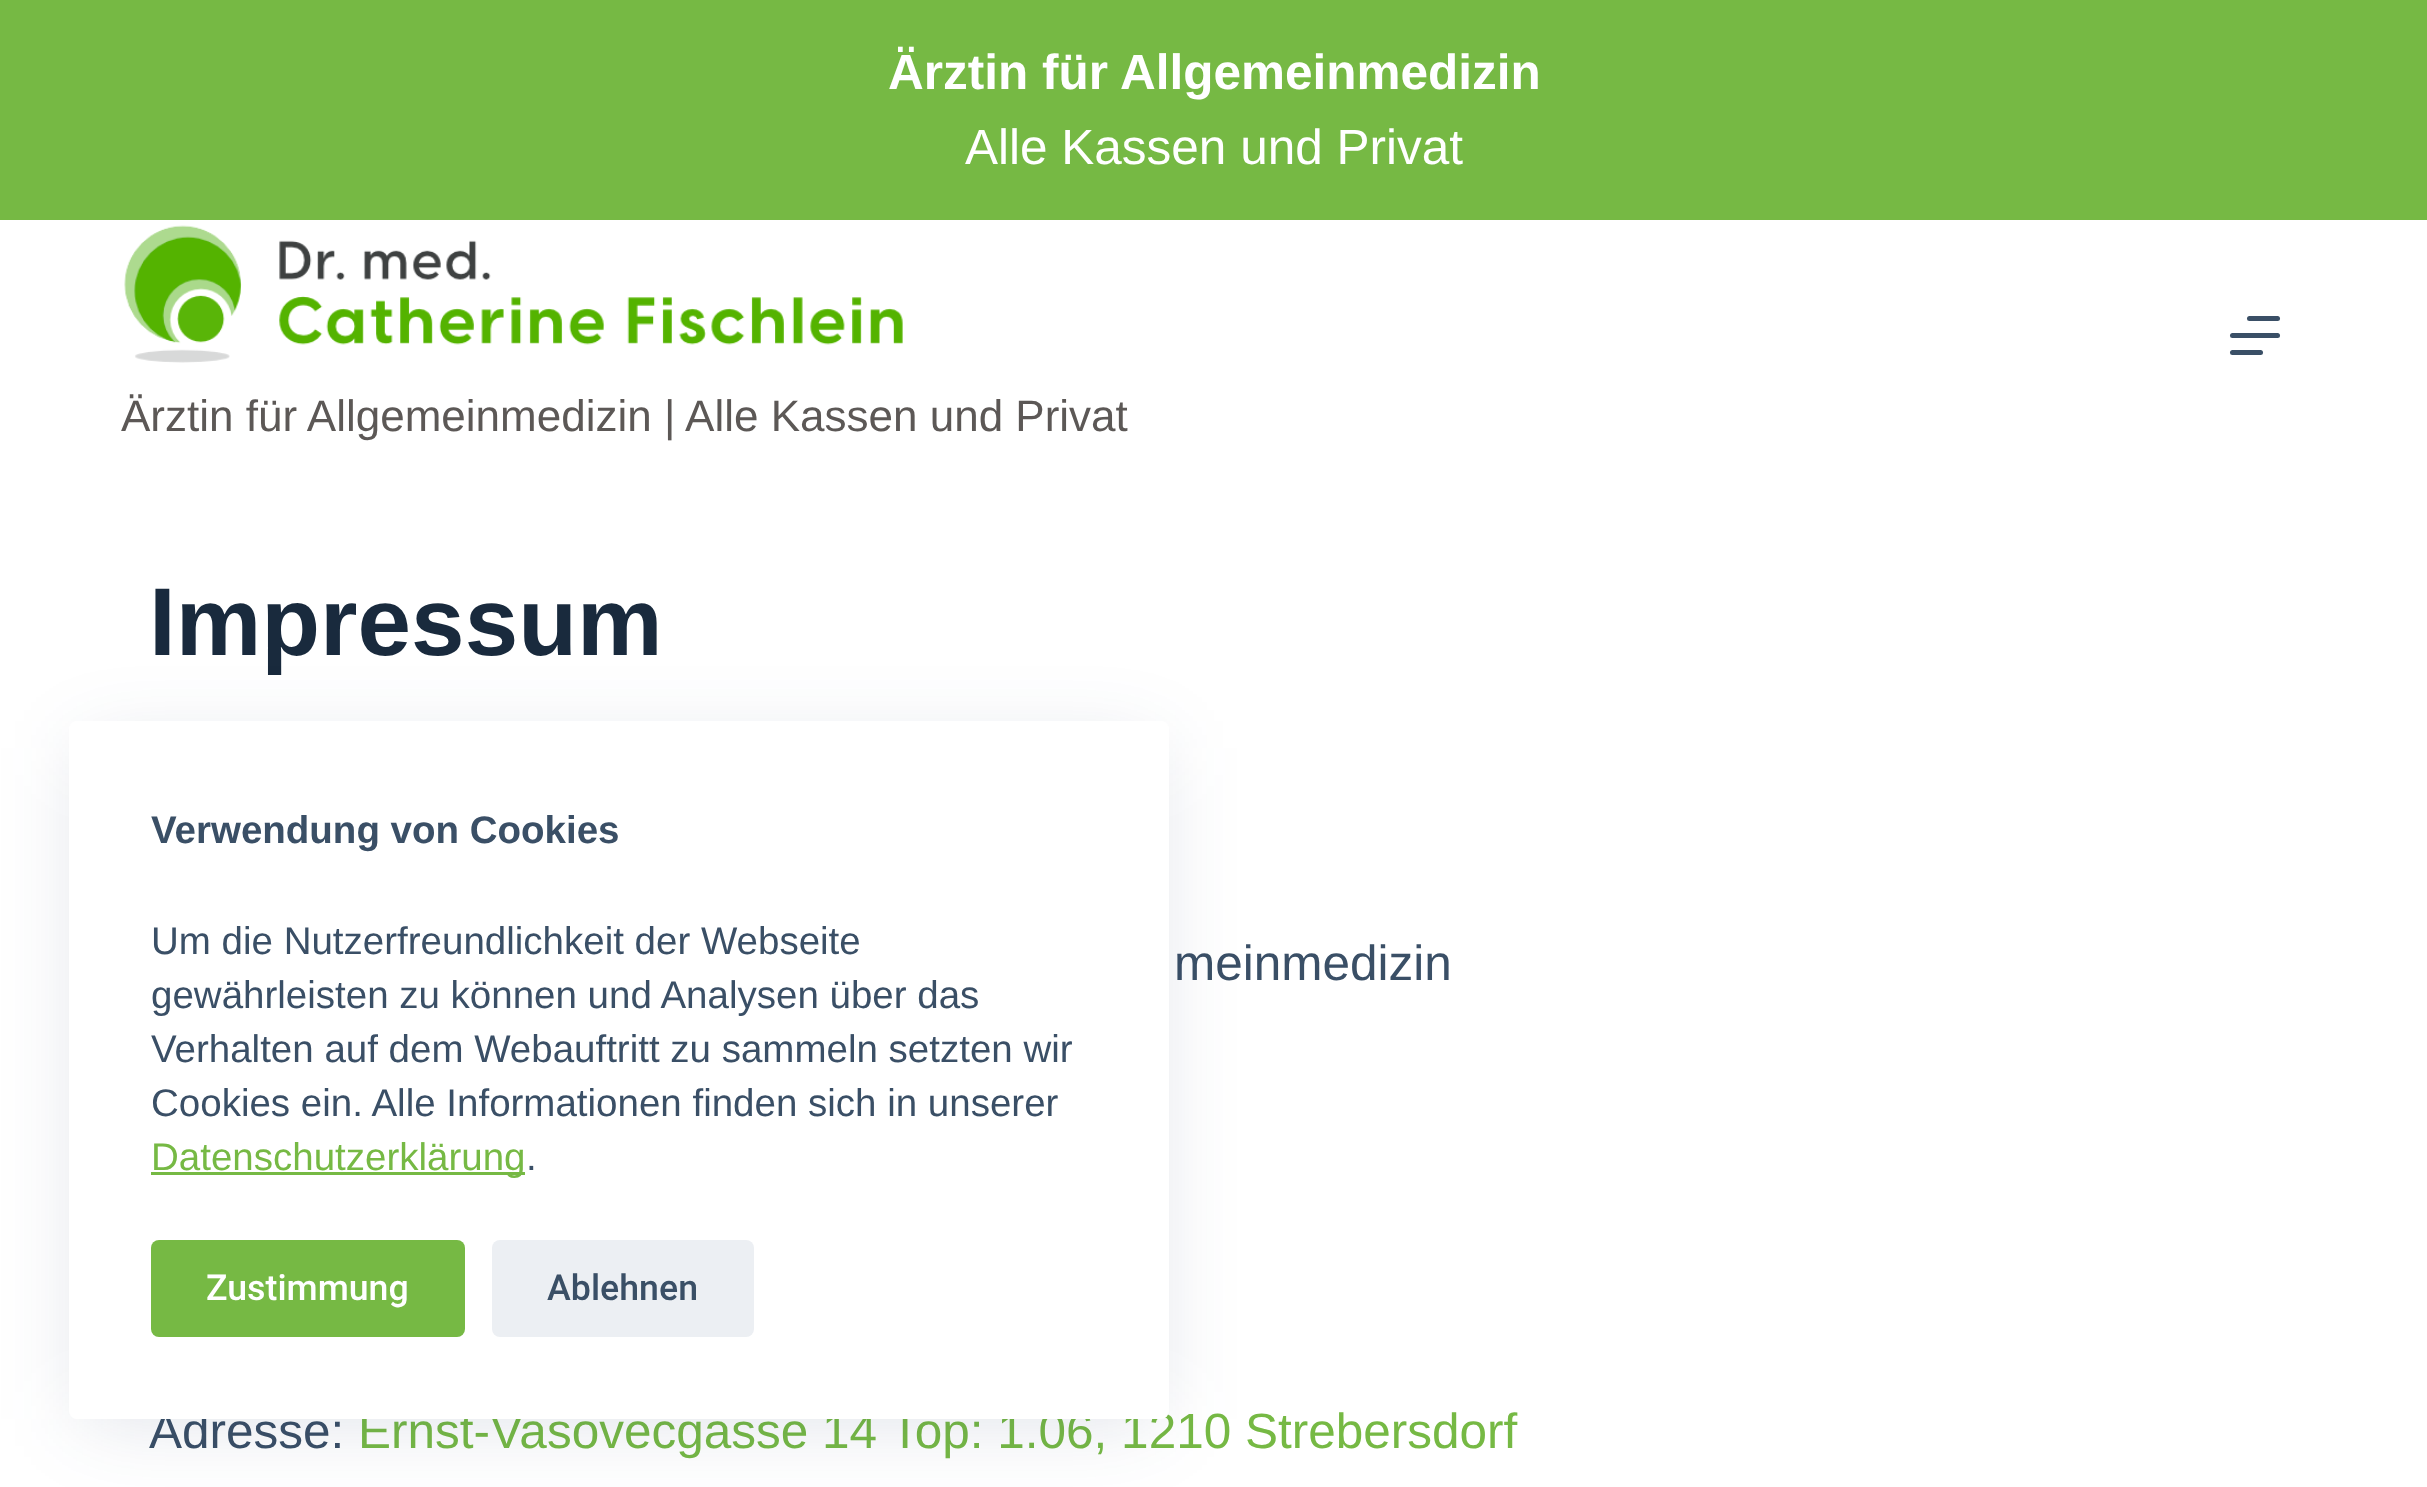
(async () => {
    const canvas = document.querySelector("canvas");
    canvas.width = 2427;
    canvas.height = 1487;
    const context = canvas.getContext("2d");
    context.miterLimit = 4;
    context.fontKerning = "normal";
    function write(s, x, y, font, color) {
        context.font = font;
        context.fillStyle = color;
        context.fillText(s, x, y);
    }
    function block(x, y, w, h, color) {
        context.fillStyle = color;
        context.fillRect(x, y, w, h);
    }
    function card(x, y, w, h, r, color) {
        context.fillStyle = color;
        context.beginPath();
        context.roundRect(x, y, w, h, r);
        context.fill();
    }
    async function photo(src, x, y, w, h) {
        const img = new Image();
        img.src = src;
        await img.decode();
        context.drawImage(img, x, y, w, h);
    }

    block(0, 0, 2427, 1487, "rgb(255, 255, 255)");
    block(0, 0, 2427, 220, "rgb(118, 185, 68)");
    write("Ärztin für Allgemeinmedizin", 888, 89, "bold 49.5px Liberation Sans", "rgb(255, 255, 255)");
    write("Alle Kassen und Privat", 965, 164, "49.5px Liberation Sans", "rgb(255, 255, 255)");
    card(2247, 316, 33, 5, 2.5, "rgb(58, 79, 102)");
    card(2230, 333, 50, 5, 2.5, "rgb(58, 79, 102)");
    card(2230, 350, 33, 5, 2.5, "rgb(58, 79, 102)");
    await photo("media/1.png", 124, 225, 779, 138);
    write("Ärztin für Allgemeinmedizin | Alle Kassen und Privat", 121, 431, "44px Liberation Sans", "rgb(92, 88, 86)");
    write("Impressum", 149, 655, "bold 96.25px Liberation Sans", "rgb(25, 42, 61)");
    write("meinmedizin", 1174, 980, "49.5px Liberation Sans", "rgb(58, 79, 102)");
    write("Adresse:", 149, 1448, "49.5px Liberation Sans", "rgb(58, 79, 102)");
    write("Ernst-Vasovecgasse 14 Top: 1.06, 1210 Strebersdorf", 358, 1448, "49.5px Liberation Sans", "rgb(118, 185, 68)");
    context.fillStyle = "rgba(34, 56, 101, 0.15)";
    context.filter = "blur(41px)";
    context.beginPath();
    context.rect(83, 748, 1072, 671);
    context.fill();
    context.filter = "none";
    card(69, 721, 1100, 698, 8, "rgb(255, 255, 255)");
    write("Verwendung von Cookies", 151, 843, "bold 38.5px Liberation Sans", "rgb(58, 79, 102)");
    write("Um die Nutzerfreundlichkeit der Webseite", 151, 954, "38.5px Liberation Sans", "rgb(58, 79, 102)");
    write("gewährleisten zu können und Analysen über das", 151, 1008, "38.5px Liberation Sans", "rgb(58, 79, 102)");
    write("Verhalten auf dem Webauftritt zu sammeln setzten wir", 151, 1062, "38.5px Liberation Sans", "rgb(58, 79, 102)");
    write("Cookies ein. Alle Informationen finden sich in unserer", 151, 1116, "38.5px Liberation Sans", "rgb(58, 79, 102)");
    block(151, 1172, 374, 3, "rgb(118, 185, 68)");
    write("Datenschutzerklärung", 151, 1170, "38.5px Liberation Sans", "rgb(118, 185, 68)");
    write(".", 526, 1170, "38.5px Liberation Sans", "rgb(58, 79, 102)");
    card(151, 1240, 314, 97, 8, "rgb(118, 185, 68)");
    write("Zustimmung", 206, 1300, "500 35.75px Roboto", "rgb(255, 255, 255)");
    card(492, 1240, 262, 97, 8, "rgb(236, 239, 243)");
    write("Ablehnen", 547, 1300, "500 35.75px Roboto", "rgb(58, 79, 102)");
})();
